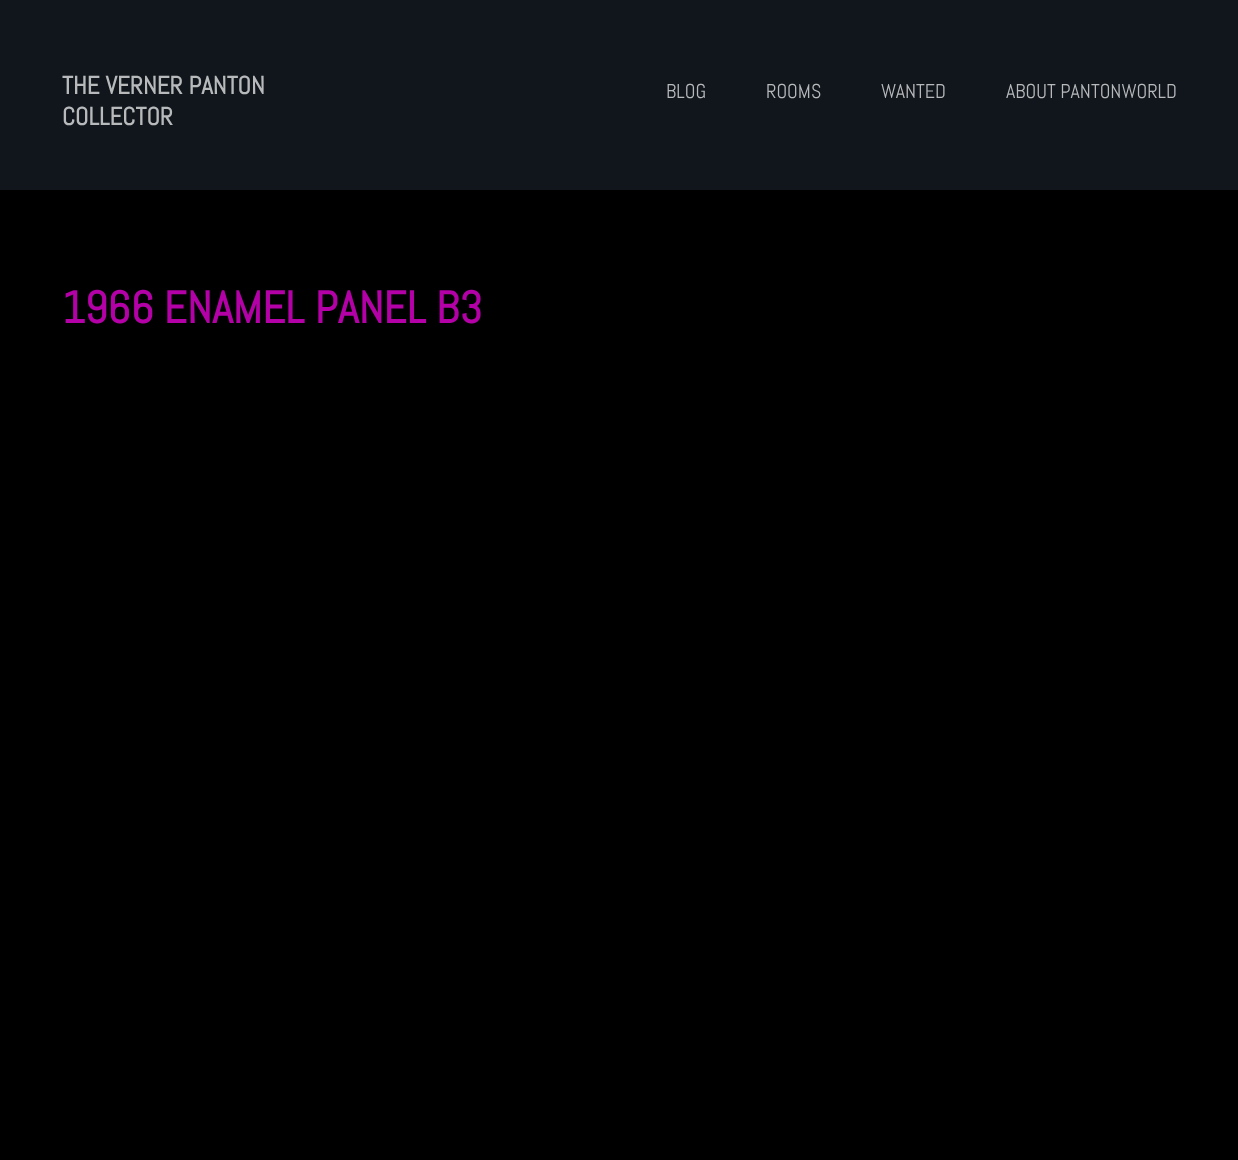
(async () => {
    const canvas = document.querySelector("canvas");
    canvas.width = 1238;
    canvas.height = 1160;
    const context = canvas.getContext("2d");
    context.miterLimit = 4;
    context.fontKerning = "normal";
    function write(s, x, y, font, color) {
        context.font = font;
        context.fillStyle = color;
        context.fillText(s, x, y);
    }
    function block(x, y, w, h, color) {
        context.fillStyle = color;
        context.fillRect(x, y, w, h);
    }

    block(0, 0, 1238, 1160, "rgb(0, 0, 0)");
    block(0, 0, 1238, 190, "rgb(16, 22, 28)");
    write("THE VERNER PANTON", 62, 94, "bold 25px Abel", "rgb(183, 185, 187)");
    write("COLLECTOR", 62, 125, "bold 25px Abel", "rgb(183, 185, 187)");
    write("BLOG", 666, 98, "20px Abel", "rgb(183, 185, 187)");
    write("ROOMS", 766, 98, "20px Abel", "rgb(183, 185, 187)");
    write("WANTED", 881, 98, "20px Abel", "rgb(183, 185, 187)");
    write("ABOUT PANTONWORLD", 1006, 98, "20px Abel", "rgb(183, 185, 187)");
    write("1966 ENAMEL PANEL B3", 62, 323, "bold 45px Abel", "rgb(179, 0, 167)");
})();
